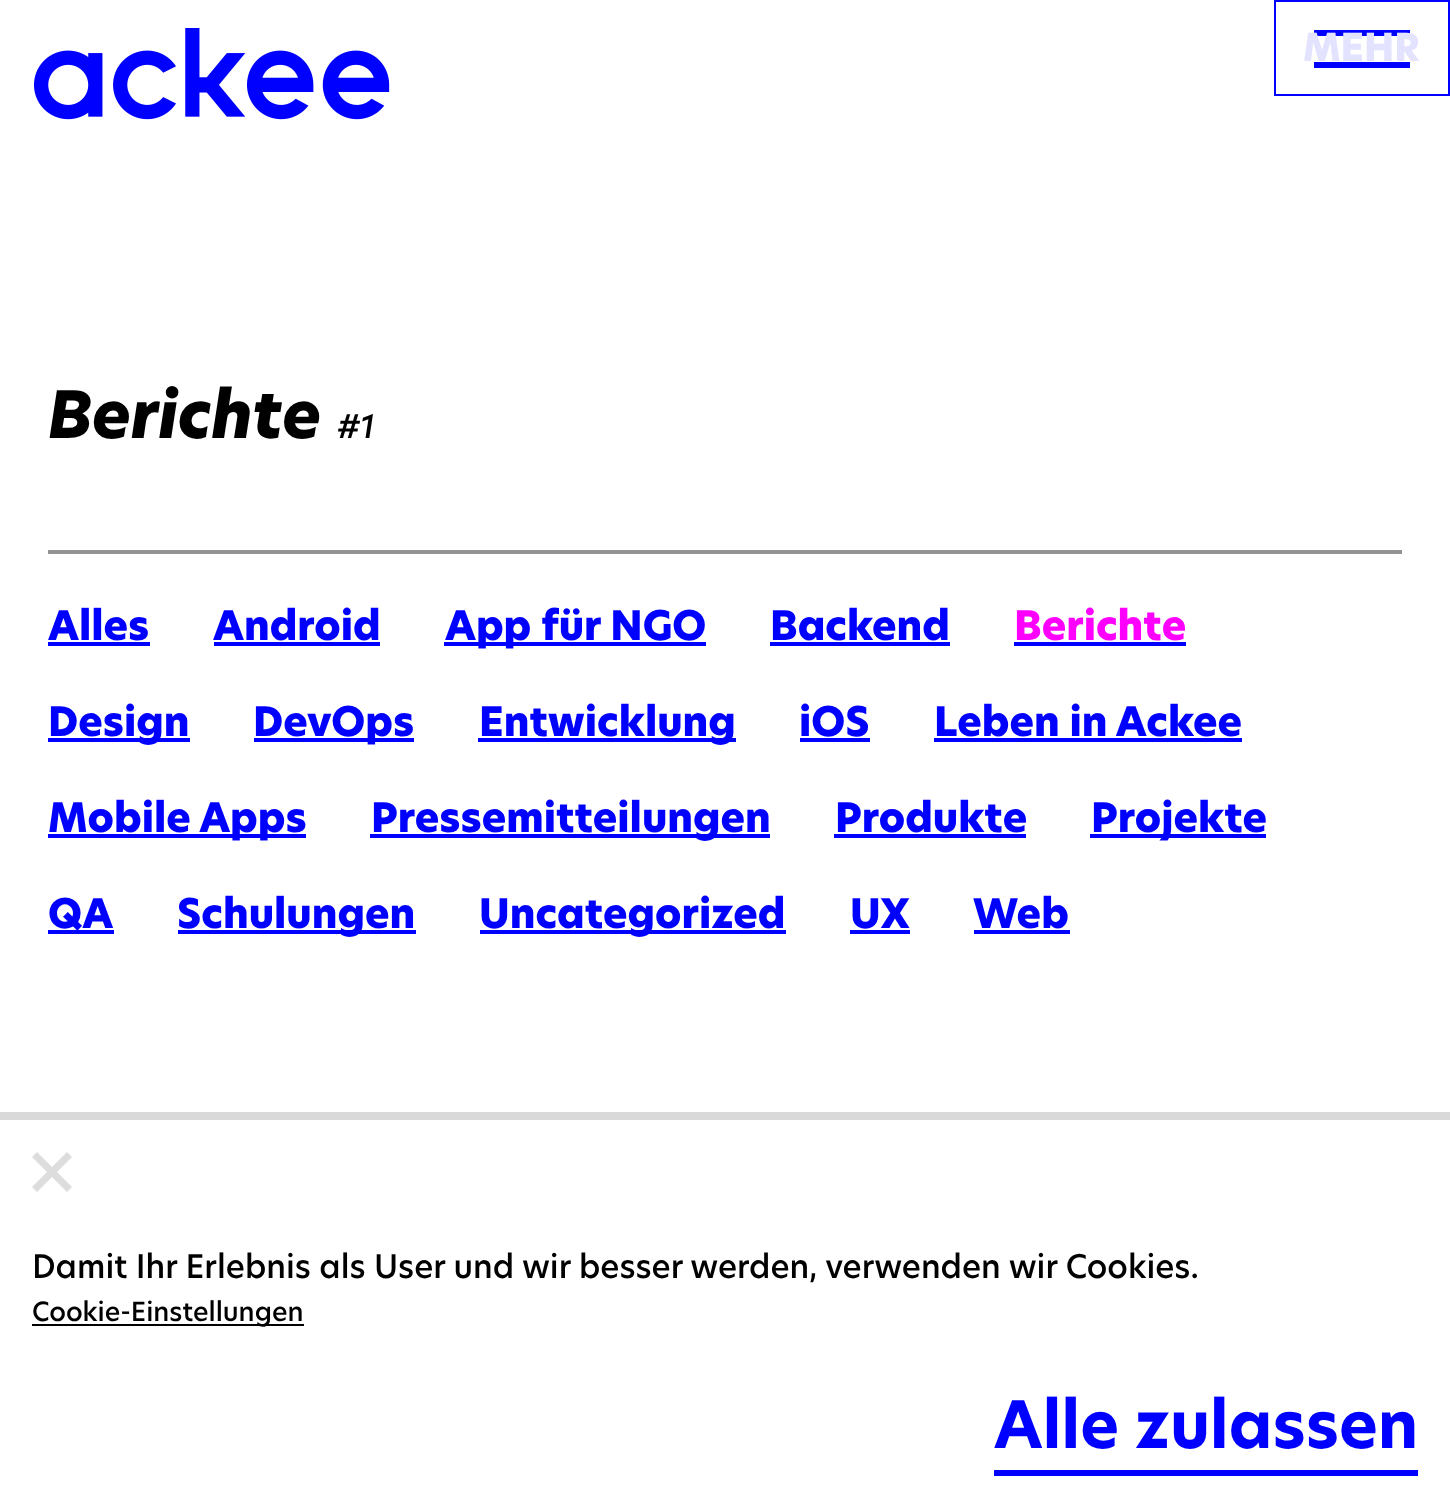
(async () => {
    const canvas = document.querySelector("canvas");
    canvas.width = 1450;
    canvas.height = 1508;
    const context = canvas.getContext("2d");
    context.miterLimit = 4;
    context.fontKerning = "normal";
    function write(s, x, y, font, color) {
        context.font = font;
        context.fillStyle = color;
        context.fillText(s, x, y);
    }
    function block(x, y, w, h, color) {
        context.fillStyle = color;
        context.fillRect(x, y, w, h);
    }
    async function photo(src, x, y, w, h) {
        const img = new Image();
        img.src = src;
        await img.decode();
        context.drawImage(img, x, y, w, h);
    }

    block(0, 0, 1450, 1508, "rgb(255, 255, 255)");
    await photo("media/1.png", 34, 28, 356, 92);
    context.strokeStyle = "rgb(0, 0, 255)";
    context.lineWidth = 2;
    context.strokeRect(1275, 1, 174, 94);
    block(1314, 30, 96, 6, "rgb(0, 0, 255)");
    write("MEHR", 1303, 61, "800 38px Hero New", "rgb(227, 227, 255)");
    block(1314, 62, 96, 6, "rgb(0, 0, 255)");
    write("Berichte", 48, 438, "italic 800 64px Hero New", "rgb(0, 0, 0)");
    write("#1", 337, 438, "italic 500 32px Hero New", "rgb(0, 0, 0)");
    block(48, 550, 1354, 4, "rgb(147, 147, 147)");
    write("Alles", 48, 640, "800 40px Hero New", "rgb(0, 0, 255)");
    block(48, 642, 102, 4, "rgb(0, 0, 255)");
    write("Android", 213, 640, "800 40px Hero New", "rgb(0, 0, 255)");
    block(214, 642, 166, 4, "rgb(0, 0, 255)");
    block(444, 642, 262, 4, "rgb(0, 0, 255)");
    write("App für NGO", 445, 640, "800 40px Hero New", "rgb(0, 0, 255)");
    write("Backend", 770, 640, "800 40px Hero New", "rgb(0, 0, 255)");
    block(770, 642, 180, 4, "rgb(0, 0, 255)");
    write("Berichte", 1014, 640, "800 40px Hero New", "rgb(255, 0, 255)");
    block(1014, 642, 172, 4, "rgb(0, 0, 255)");
    block(48, 738, 142, 4, "rgb(0, 0, 255)");
    write("Design", 48, 736, "800 40px Hero New", "rgb(0, 0, 255)");
    block(254, 738, 160, 4, "rgb(0, 0, 255)");
    write("DevOps", 253, 736, "800 40px Hero New", "rgb(0, 0, 255)");
    block(478, 738, 258, 4, "rgb(0, 0, 255)");
    write("Entwicklung", 479, 736, "800 40px Hero New", "rgb(0, 0, 255)");
    write("iOS", 799, 736, "800 40px Hero New", "rgb(0, 0, 255)");
    block(800, 738, 70, 4, "rgb(0, 0, 255)");
    write("Leben in Ackee", 934, 736, "800 40px Hero New", "rgb(0, 0, 255)");
    block(934, 738, 308, 4, "rgb(0, 0, 255)");
    block(48, 834, 258, 4, "rgb(0, 0, 255)");
    write("Mobile Apps", 48, 832, "800 40px Hero New", "rgb(0, 0, 255)");
    block(370, 834, 400, 4, "rgb(0, 0, 255)");
    write("Pressemitteilungen", 371, 832, "800 40px Hero New", "rgb(0, 0, 255)");
    write("Produkte", 835, 832, "800 40px Hero New", "rgb(0, 0, 255)");
    block(834, 834, 192, 4, "rgb(0, 0, 255)");
    block(1090, 834, 176, 4, "rgb(0, 0, 255)");
    write("Projekte", 1091, 832, "800 40px Hero New", "rgb(0, 0, 255)");
    block(48, 930, 66, 4, "rgb(0, 0, 255)");
    write("QA", 48, 928, "800 40px Hero New", "rgb(0, 0, 255)");
    block(178, 930, 238, 4, "rgb(0, 0, 255)");
    write("Schulungen", 177, 928, "800 40px Hero New", "rgb(0, 0, 255)");
    block(480, 930, 306, 4, "rgb(0, 0, 255)");
    write("Uncategorized", 479, 928, "800 40px Hero New", "rgb(0, 0, 255)");
    write("UX", 850, 928, "800 40px Hero New", "rgb(0, 0, 255)");
    block(850, 930, 60, 4, "rgb(0, 0, 255)");
    write("Web", 973, 928, "800 40px Hero New", "rgb(0, 0, 255)");
    block(974, 930, 96, 4, "rgb(0, 0, 255)");
    block(0, 1112, 1450, 8, "rgb(217, 217, 217)");
    context.fillStyle = "rgb(221, 221, 221)";
    context.beginPath();
    context.moveTo(67, 1152);
    context.lineTo(52, 1167);
    context.lineTo(37, 1152);
    context.lineTo(32, 1157);
    context.lineTo(47, 1172);
    context.lineTo(32, 1187);
    context.lineTo(37, 1192);
    context.lineTo(52, 1177);
    context.lineTo(67, 1192);
    context.lineTo(72, 1187);
    context.lineTo(57, 1172);
    context.lineTo(72, 1157);
    context.closePath();
    context.fill("evenodd");
    write("Damit Ihr Erlebnis als User und wir besser werden, verwenden wir Cookies.", 32, 1278, "500 32px Hero New", "rgb(0, 0, 0)");
    block(32, 1324, 272, 2, "rgb(0, 0, 0)");
    write("Cookie-Einstellungen", 32, 1321, "500 26px Hero New", "rgb(0, 0, 0)");
    block(994, 1470, 424, 6, "rgb(0, 0, 255)");
    write("Alle zulassen", 994, 1448, "bold 64px Hero New", "rgb(0, 0, 255)");
})();
